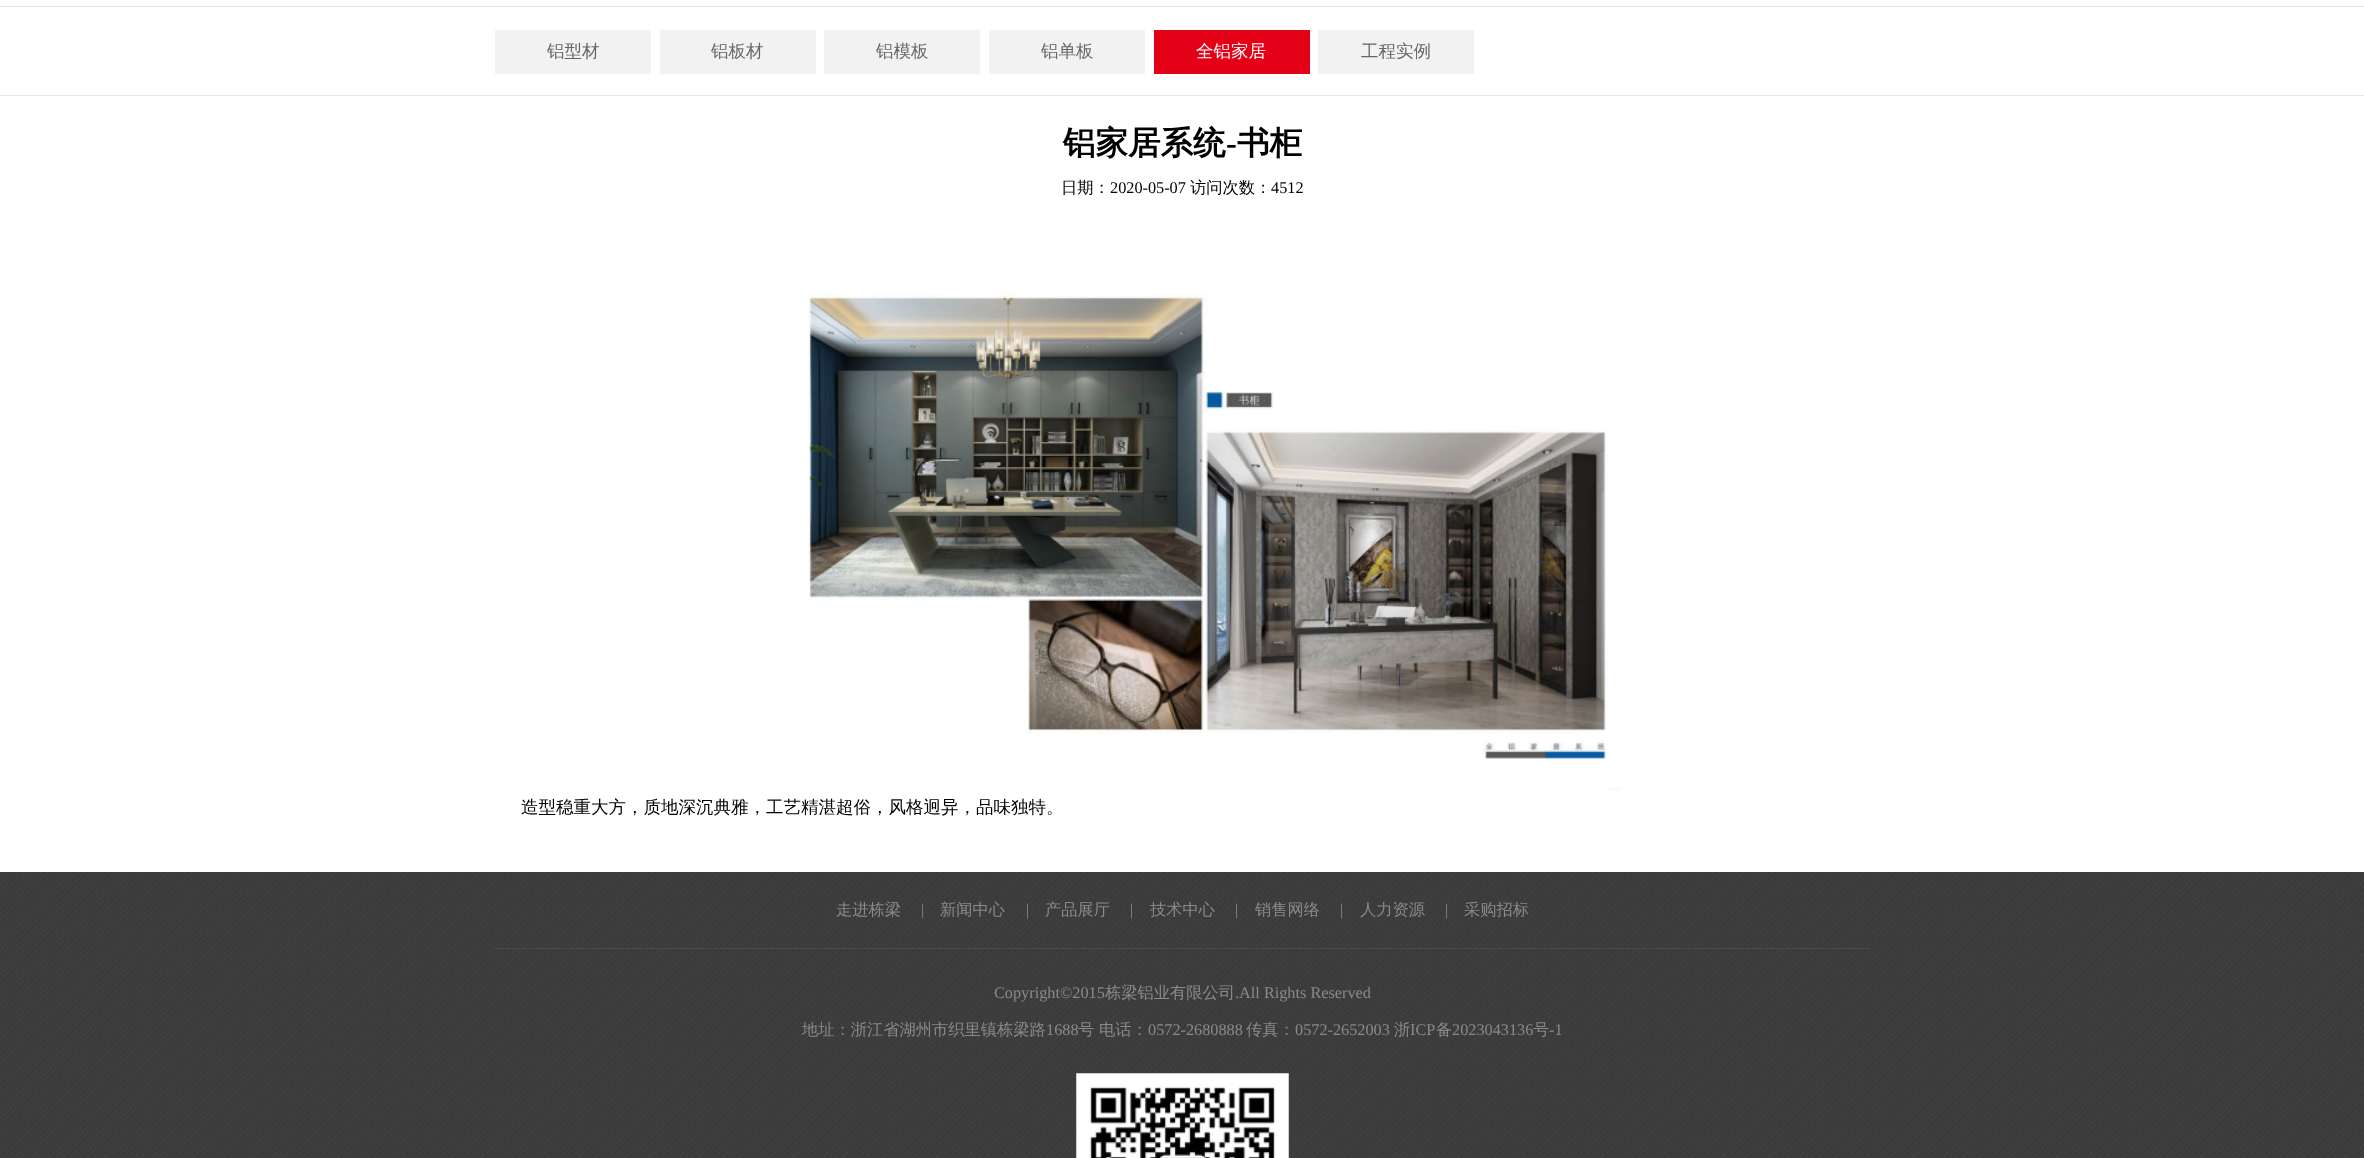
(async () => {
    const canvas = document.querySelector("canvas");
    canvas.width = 2364;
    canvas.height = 1158;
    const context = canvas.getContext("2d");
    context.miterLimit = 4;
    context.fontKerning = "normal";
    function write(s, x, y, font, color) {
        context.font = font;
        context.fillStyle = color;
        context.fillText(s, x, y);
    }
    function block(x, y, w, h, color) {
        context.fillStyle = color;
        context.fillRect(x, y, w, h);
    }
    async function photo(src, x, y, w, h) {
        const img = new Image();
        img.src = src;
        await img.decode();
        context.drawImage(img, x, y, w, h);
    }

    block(0, 0, 2364, 1158, "rgb(255, 255, 255)");
    block(0, 6, 2364, 1, "rgb(232, 232, 232)");
    block(495, 30, 156, 44, "rgb(242, 242, 242)");
    write("铝型材", 547, 57, "500 17.5px WenQuanYi Zen Hei", "rgb(102, 102, 102)");
    block(660, 30, 156, 44, "rgb(242, 242, 242)");
    write("铝板材", 711, 57, "500 17.5px WenQuanYi Zen Hei", "rgb(102, 102, 102)");
    block(824, 30, 156, 44, "rgb(242, 242, 242)");
    write("铝模板", 876, 57, "500 17.5px WenQuanYi Zen Hei", "rgb(102, 102, 102)");
    block(989, 30, 156, 44, "rgb(242, 242, 242)");
    write("铝单板", 1041, 57, "500 17.5px WenQuanYi Zen Hei", "rgb(102, 102, 102)");
    block(1154, 30, 156, 44, "rgb(228, 0, 23)");
    write("全铝家居", 1196, 57, "500 17.5px WenQuanYi Zen Hei", "rgb(255, 255, 255)");
    block(1318, 30, 156, 44, "rgb(242, 242, 242)");
    write("工程实例", 1361, 57, "500 17.5px WenQuanYi Zen Hei", "rgb(102, 102, 102)");
    block(0, 95, 2364, 1, "rgb(232, 232, 232)");
    write("铝家居系统", 1063, 154, "bold 32.5px WenQuanYi Zen Hei", "rgb(0, 0, 0)");
    write("-", 1226, 154, "bold 32.5px Liberation Serif", "rgb(0, 0, 0)");
    write("书柜", 1237, 154, "bold 32.5px WenQuanYi Zen Hei", "rgb(0, 0, 0)");
    write("日期：", 1061, 193, "500 16.25px WenQuanYi Zen Hei", "rgb(0, 0, 0)");
    write("2020-05-07", 1110, 193, "16.25px Liberation Serif", "rgb(0, 0, 0)");
    write("访问次数：", 1190, 193, "500 16.25px WenQuanYi Zen Hei", "rgb(0, 0, 0)");
    write("4512", 1271, 193, "16.25px Liberation Serif", "rgb(0, 0, 0)");
    await photo("media/1.png", 808, 291, 813, 500);
    write("造型稳重大方，质地深沉典雅，工艺精湛超俗，风格迥异，品味独特。", 521, 813, "500 17.5px WenQuanYi Zen Hei", "rgb(0, 0, 0)");
    await photo("media/2.png", 0, 872, 2364, 286);
    write("走进栋梁", 836, 915, "500 16.25px WenQuanYi Zen Hei", "rgb(138, 138, 138)");
    write("|", 921, 915, "16.25px Liberation Serif", "rgb(138, 138, 138)");
    write("新闻中心", 940, 915, "500 16.25px WenQuanYi Zen Hei", "rgb(138, 138, 138)");
    write("|", 1026, 915, "16.25px Liberation Serif", "rgb(138, 138, 138)");
    write("产品展厅", 1045, 915, "500 16.25px WenQuanYi Zen Hei", "rgb(138, 138, 138)");
    write("|", 1130, 915, "16.25px Liberation Serif", "rgb(138, 138, 138)");
    write("技术中心", 1150, 915, "500 16.25px WenQuanYi Zen Hei", "rgb(138, 138, 138)");
    write("|", 1235, 915, "16.25px Liberation Serif", "rgb(138, 138, 138)");
    write("销售网络", 1255, 915, "500 16.25px WenQuanYi Zen Hei", "rgb(138, 138, 138)");
    write("|", 1340, 915, "16.25px Liberation Serif", "rgb(138, 138, 138)");
    write("人力资源", 1360, 915, "500 16.25px WenQuanYi Zen Hei", "rgb(138, 138, 138)");
    write("|", 1445, 915, "16.25px Liberation Serif", "rgb(138, 138, 138)");
    write("采购招标", 1464, 915, "500 16.25px WenQuanYi Zen Hei", "rgb(138, 138, 138)");
    block(495, 948, 1375, 1, "rgb(74, 74, 74)");
    write("Copyright©2015", 994, 998, "16.25px Liberation Serif", "rgb(138, 138, 138)");
    write("栋梁铝业有限公司", 1105, 998, "500 16.25px WenQuanYi Zen Hei", "rgb(138, 138, 138)");
    write(".All Rights Reserved", 1235, 998, "16.25px Liberation Serif", "rgb(138, 138, 138)");
    write("地址：浙江省湖州市织里镇栋梁路", 802, 1035, "500 16.25px WenQuanYi Zen Hei", "rgb(138, 138, 138)");
    write("1688", 1046, 1035, "16.25px Liberation Serif", "rgb(138, 138, 138)");
    write("号", 1078, 1035, "500 16.25px WenQuanYi Zen Hei", "rgb(138, 138, 138)");
    write("电话：", 1099, 1035, "500 16.25px WenQuanYi Zen Hei", "rgb(138, 138, 138)");
    write("0572-2680888", 1148, 1035, "16.25px Liberation Serif", "rgb(138, 138, 138)");
    write("传真：", 1246, 1035, "500 16.25px WenQuanYi Zen Hei", "rgb(138, 138, 138)");
    write("0572-2652003", 1295, 1035, "16.25px Liberation Serif", "rgb(138, 138, 138)");
    write("浙", 1394, 1035, "500 16.25px WenQuanYi Zen Hei", "rgb(138, 138, 138)");
    write("ICP", 1410, 1035, "16.25px Liberation Serif", "rgb(138, 138, 138)");
    write("备", 1436, 1035, "500 16.25px WenQuanYi Zen Hei", "rgb(138, 138, 138)");
    write("2023043136", 1452, 1035, "16.25px Liberation Serif", "rgb(138, 138, 138)");
    write("号", 1533, 1035, "500 16.25px WenQuanYi Zen Hei", "rgb(138, 138, 138)");
    write("-1", 1549, 1035, "16.25px Liberation Serif", "rgb(138, 138, 138)");
    await photo("media/3.png", 1076, 1073, 213, 85);
})();
